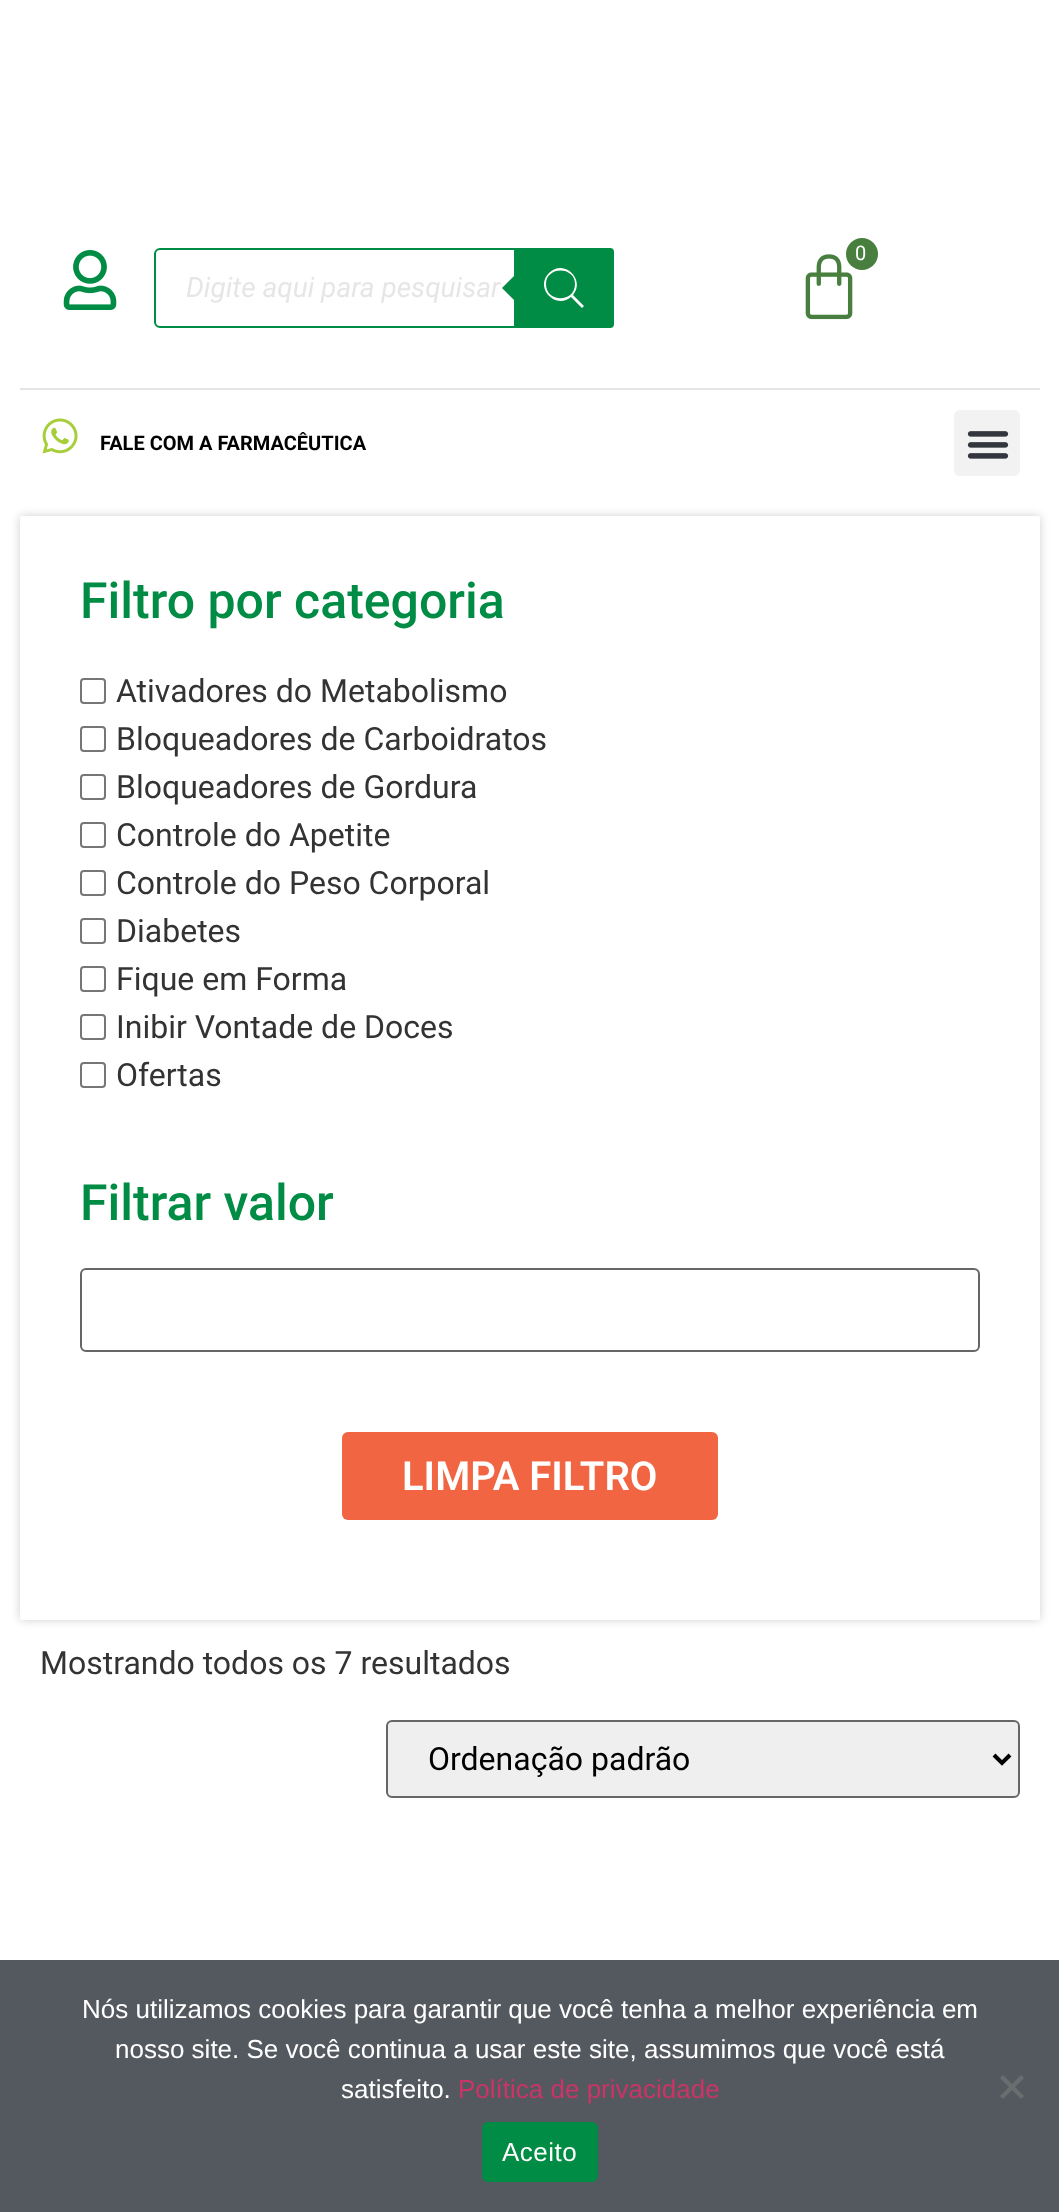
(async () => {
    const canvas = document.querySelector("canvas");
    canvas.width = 1059;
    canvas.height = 2212;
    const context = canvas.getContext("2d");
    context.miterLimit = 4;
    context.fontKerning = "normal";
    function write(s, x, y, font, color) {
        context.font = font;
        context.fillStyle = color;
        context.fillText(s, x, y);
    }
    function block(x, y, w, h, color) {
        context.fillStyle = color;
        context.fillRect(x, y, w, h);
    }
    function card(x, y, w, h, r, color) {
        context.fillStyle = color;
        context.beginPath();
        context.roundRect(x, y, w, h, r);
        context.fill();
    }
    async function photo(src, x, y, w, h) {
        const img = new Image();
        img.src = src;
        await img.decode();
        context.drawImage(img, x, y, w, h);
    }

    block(0, 0, 1059, 2212, "rgb(255, 255, 255)");
    block(20, 388, 1020, 2, "rgb(229, 229, 229)");
    await photo("media/1.png", 63, 250, 54, 60);
    context.beginPath();
    context.roundRect(155, 249, 458, 78, 5);
    context.strokeStyle = "rgb(0, 140, 68)";
    context.lineWidth = 2;
    context.stroke();
    write("Digite aqui para pesquisar", 186, 297, "italic 28px Roboto", "rgb(230, 230, 230)");
    context.fillStyle = "rgb(0, 140, 68)";
    context.beginPath();
    context.roundRect(514, 248, 100, 80, [0, 4, 4, 0]);
    context.fill();
    context.beginPath();
    context.moveTo(518, 272);
    context.lineTo(518, 304);
    context.lineTo(502, 288);
    context.closePath();
    context.fill();
    context.fillStyle = "rgb(255, 255, 255)";
    context.beginPath();
    context.moveTo(584, 306);
    context.lineTo(573, 295);
    context.bezierCurveTo(586, 280, 564, 258, 549, 273);
    context.bezierCurveTo(534, 288, 556, 310, 571, 297);
    context.lineTo(582, 308);
    context.closePath();
    context.moveTo(546, 284);
    context.bezierCurveTo(546, 266, 575, 266, 575, 284);
    context.bezierCurveTo(575, 303, 546, 303, 546, 284);
    context.closePath();
    context.fill();
    await photo("media/2.png", 805, 254, 48, 66);
    context.fillStyle = "rgb(72, 127, 62)";
    context.beginPath();
    context.arc(862, 254, 16, 0, Math.PI * 2);
    context.fill();
    write("0", 855, 260, "20px Roboto", "rgb(255, 255, 255)");
    await photo("media/3.png", 42, 418, 36, 36);
    write("FALE COM A FARMACÊUTICA", 100, 450, "bold 20px Roboto", "rgb(0, 0, 0)");
    card(954, 410, 66, 66, 6, "rgb(242, 242, 242)");
    await photo("media/4.png", 967, 431, 42, 28);
    context.save();
    context.beginPath();
    context.moveTo(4, 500);
    context.lineTo(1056, 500);
    context.lineTo(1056, 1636);
    context.lineTo(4, 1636);
    context.closePath();
    context.moveTo(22, 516);
    context.lineTo(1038, 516);
    context.bezierCurveTo(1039, 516, 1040, 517, 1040, 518);
    context.lineTo(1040, 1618);
    context.bezierCurveTo(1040, 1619, 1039, 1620, 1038, 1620);
    context.lineTo(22, 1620);
    context.bezierCurveTo(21, 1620, 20, 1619, 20, 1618);
    context.lineTo(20, 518);
    context.bezierCurveTo(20, 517, 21, 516, 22, 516);
    context.closePath();
    context.clip("evenodd");
    context.fillStyle = "rgba(0, 0, 0, 0.19)";
    context.filter = "blur(5px)";
    context.beginPath();
    context.roundRect(20, 516, 1020, 1104, 2);
    context.fill();
    context.filter = "none";
    context.restore();
    write("Filtro por categoria", 80, 618, "500 50px Roboto", "rgb(0, 140, 68)");
    context.beginPath();
    context.roundRect(81, 679, 24, 24, 3);
    context.strokeStyle = "rgb(118, 118, 118)";
    context.stroke();
    write("Ativadores do Metabolismo", 116, 702, "32px Roboto", "rgb(51, 51, 51)");
    context.beginPath();
    context.roundRect(81, 727, 24, 24, 3);
    context.stroke();
    write("Bloqueadores de Carboidratos", 116, 750, "32px Roboto", "rgb(51, 51, 51)");
    context.beginPath();
    context.roundRect(81, 775, 24, 24, 3);
    context.stroke();
    write("Bloqueadores de Gordura", 116, 798, "32px Roboto", "rgb(51, 51, 51)");
    context.beginPath();
    context.roundRect(81, 823, 24, 24, 3);
    context.stroke();
    write("Controle do Apetite", 116, 846, "32px Roboto", "rgb(51, 51, 51)");
    context.beginPath();
    context.roundRect(81, 871, 24, 24, 3);
    context.stroke();
    write("Controle do Peso Corporal", 116, 894, "32px Roboto", "rgb(51, 51, 51)");
    context.beginPath();
    context.roundRect(81, 919, 24, 24, 3);
    context.stroke();
    write("Diabetes", 116, 942, "32px Roboto", "rgb(51, 51, 51)");
    context.beginPath();
    context.roundRect(81, 967, 24, 24, 3);
    context.stroke();
    write("Fique em Forma", 116, 990, "32px Roboto", "rgb(51, 51, 51)");
    context.beginPath();
    context.roundRect(81, 1015, 24, 24, 3);
    context.stroke();
    write("Inibir Vontade de Doces", 116, 1038, "32px Roboto", "rgb(51, 51, 51)");
    context.beginPath();
    context.roundRect(81, 1063, 24, 24, 3);
    context.stroke();
    write("Ofertas", 116, 1086, "32px Roboto", "rgb(51, 51, 51)");
    write("Filtrar valor", 80, 1220, "500 50px Roboto", "rgb(0, 140, 68)");
    context.beginPath();
    context.roundRect(81, 1269, 898, 82, 5);
    context.strokeStyle = "rgb(102, 102, 102)";
    context.stroke();
    card(342, 1432, 376, 88, 6, "rgb(241, 101, 67)");
    write("LIMPA FILTRO", 402, 1490, "600 40px Roboto", "rgb(255, 255, 255)");
    write("Mostrando todos os 7 resultados", 40, 1674, "32px Roboto", "rgb(51, 51, 51)");
    context.fillStyle = "rgb(239, 239, 239)";
    context.beginPath();
    context.roundRect(387, 1721, 632, 76, 5);
    context.fill();
    context.stroke();
    context.beginPath();
    context.moveTo(994, 1755);
    context.lineTo(1002, 1763);
    context.lineTo(1010, 1755);
    context.strokeStyle = "rgb(0, 0, 0)";
    context.lineWidth = 4;
    context.stroke();
    write("Ordenação padrão", 428, 1770, "32px Roboto", "rgb(0, 0, 0)");
    block(0, 1960, 1059, 252, "rgb(84, 89, 95)");
    write("Nós utilizamos cookies para garantir que você tenha a melhor experiência em", 82, 2018, "26px Liberation Sans", "rgb(255, 255, 255)");
    write("nosso site. Se você continua a usar este site, assumimos que você está", 115, 2058, "26px Liberation Sans", "rgb(255, 255, 255)");
    write("satisfeito.", 341, 2098, "26px Liberation Sans", "rgb(255, 255, 255)");
    write("Política de privacidade", 458, 2098, "26px Liberation Sans", "rgb(204, 51, 102)");
    context.fillStyle = "rgb(106, 109, 112)";
    context.beginPath();
    context.moveTo(1021, 2075);
    context.lineTo(1024, 2078);
    context.lineTo(1003, 2099);
    context.lineTo(1000, 2096);
    context.closePath();
    context.fill();
    context.beginPath();
    context.moveTo(1000, 2078);
    context.lineTo(1003, 2075);
    context.lineTo(1024, 2096);
    context.lineTo(1021, 2099);
    context.closePath();
    context.fill();
    card(482, 2122, 116, 60, 6, "rgb(0, 140, 68)");
    context.letterSpacing = "0.5px";
    write("Aceito", 502, 2161, "26px Liberation Sans", "rgb(255, 255, 255)");
})();
